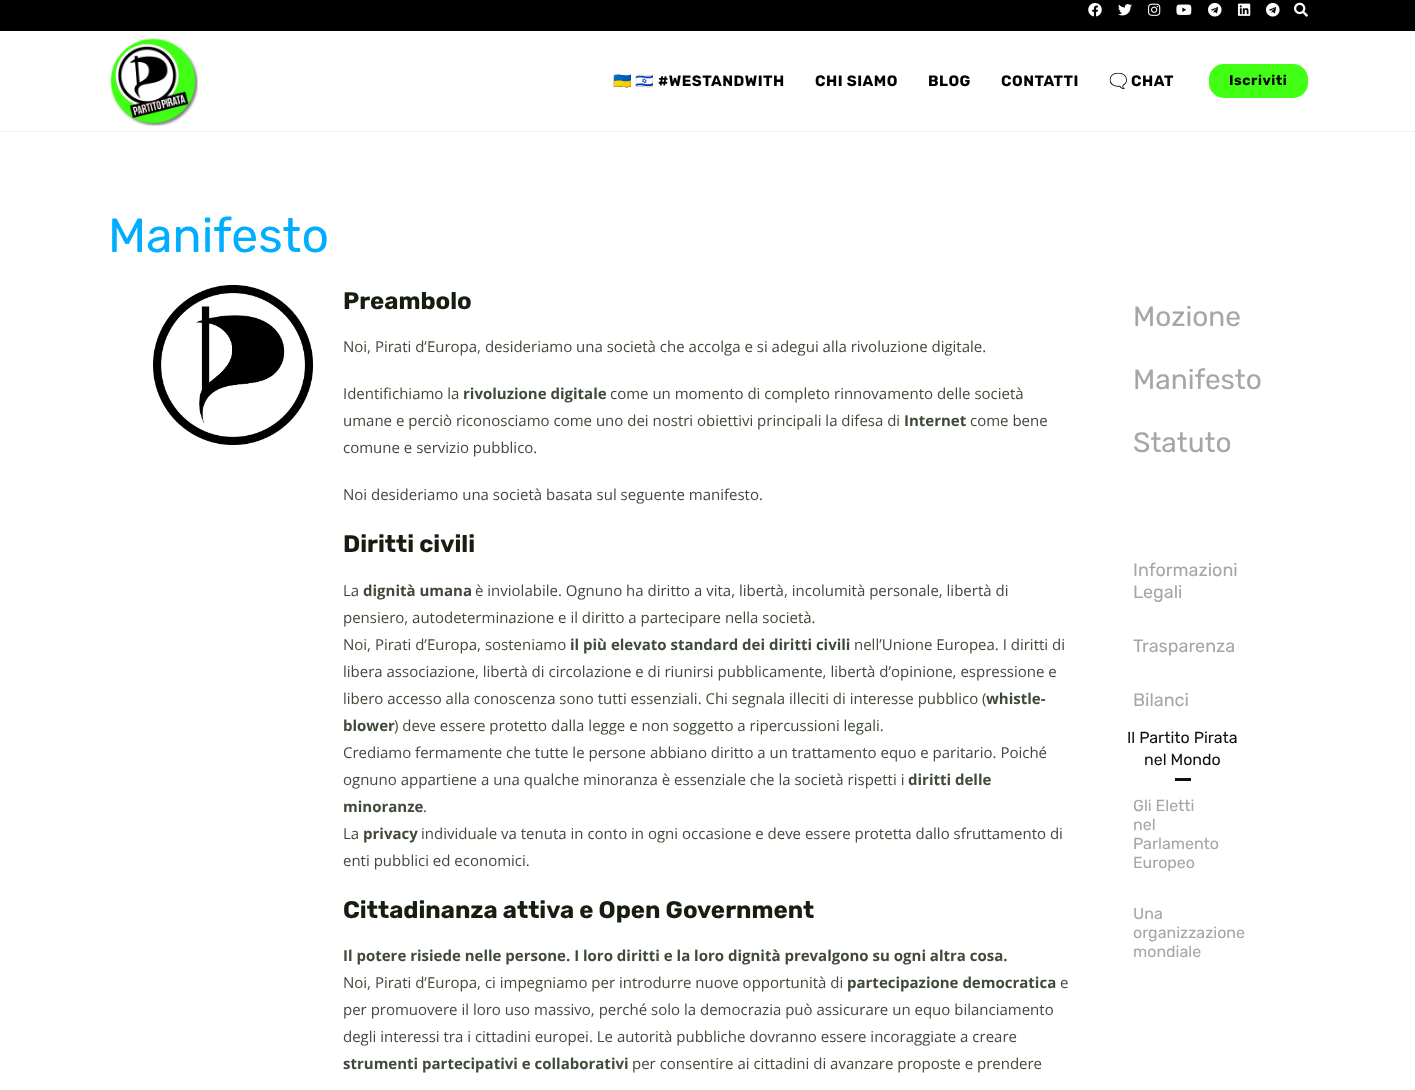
(async () => {
    const canvas = document.querySelector("canvas");
    canvas.width = 1415;
    canvas.height = 1090;
    const context = canvas.getContext("2d");
    context.miterLimit = 4;
    context.fontKerning = "normal";
    function write(s, x, y, font, color) {
        context.font = font;
        context.fillStyle = color;
        context.fillText(s, x, y);
    }
    function block(x, y, w, h, color) {
        context.fillStyle = color;
        context.fillRect(x, y, w, h);
    }
    function card(x, y, w, h, r, color) {
        context.fillStyle = color;
        context.beginPath();
        context.roundRect(x, y, w, h, r);
        context.fill();
    }
    async function photo(src, x, y, w, h) {
        const img = new Image();
        img.src = src;
        await img.decode();
        context.drawImage(img, x, y, w, h);
    }

    block(0, 0, 1415, 1090, "rgb(255, 255, 255)");
    block(0, 0, 1415, 31, "rgb(0, 0, 0)");
    await photo("media/1.png", 1088, 3, 14, 14);
    await photo("media/2.png", 1118, 4, 14, 12);
    await photo("media/3.png", 1148, 3, 13, 13);
    await photo("media/4.png", 1176, 4, 16, 11);
    await photo("media/5.png", 1208, 3, 14, 14);
    await photo("media/6.png", 1238, 3, 13, 13);
    await photo("media/5.png", 1266, 3, 14, 14);
    await photo("media/7.png", 1294, 2, 14, 15);
    await photo("media/8.png", 110, 38, 88, 88);
    context.letterSpacing = "0.5px";
    write("🇺🇦", 613, 86, "bold 15px Noto Color Emoji", "rgb(0, 0, 0)");
    write("🇮🇱", 635, 86, "bold 15px Noto Color Emoji", "rgb(0, 0, 0)");
    write("#WESTANDWITH", 658, 86, "bold 15px Rubik", "rgb(0, 0, 0)");
    write("CHI SIAMO", 815, 86, "bold 15px Rubik", "rgb(0, 0, 0)");
    write("BLOG", 928, 86, "bold 15px Rubik", "rgb(0, 0, 0)");
    write("CONTATTI", 1001, 86, "bold 15px Rubik", "rgb(0, 0, 0)");
    write("🗨️", 1109, 86, "bold 15px Noto Color Emoji", "rgb(0, 0, 0)");
    write("CHAT", 1131, 86, "bold 15px Rubik", "rgb(0, 0, 0)");
    card(1209, 64, 99, 34, 15, "rgb(64, 255, 21)");
    write("Iscriviti", 1229, 85, "bold 14px Rubik", "rgb(0, 0, 0)");
    block(0, 131, 1415, 1, "rgb(242, 242, 242)");
    context.letterSpacing = "0px";
    write("Manifesto", 108, 252, "48px Rubik", "rgb(0, 173, 255)");
    await photo("media/9.png", 153, 285, 160, 160);
    write("Preambolo", 343, 309, "bold 24px Rubik", "rgb(21, 30, 17)");
    write("Noi, Pirati d’Europa, desideriamo una società che accolga e si adegui alla rivoluzione digitale.", 343, 352, "15px Open Sans", "rgb(64, 74, 59)");
    write("Identifichiamo la", 343, 399, "15px Open Sans", "rgb(64, 74, 59)");
    write("rivoluzione digitale", 463, 399, "bold 15px Open Sans", "rgb(64, 74, 59)");
    write("come un momento di completo rinnovamento delle società", 610, 399, "15px Open Sans", "rgb(64, 74, 59)");
    write("umane e perciò riconosciamo come uno dei nostri obiettivi principali la difesa di", 343, 426, "15px Open Sans", "rgb(64, 74, 59)");
    write("Internet", 904, 426, "bold 15px Open Sans", "rgb(64, 74, 59)");
    write("come bene", 970, 426, "15px Open Sans", "rgb(64, 74, 59)");
    write("comune e servizio pubblico.", 343, 453, "15px Open Sans", "rgb(64, 74, 59)");
    write("Noi desideriamo una società basata sul seguente manifesto.", 343, 500, "15px Open Sans", "rgb(64, 74, 59)");
    write("Diritti civili", 343, 552, "bold 24px Rubik", "rgb(21, 30, 17)");
    write("La", 343, 596, "15px Open Sans", "rgb(64, 74, 59)");
    write("dignità umana", 363, 596, "bold 15px Open Sans", "rgb(64, 74, 59)");
    write("è inviolabile. Ognuno ha diritto a vita, libertà, incolumità personale, libertà di", 475, 596, "15px Open Sans", "rgb(64, 74, 59)");
    write("pensiero, autodeterminazione e il diritto a partecipare nella società.", 343, 623, "15px Open Sans", "rgb(64, 74, 59)");
    write("Noi, Pirati d’Europa, sosteniamo", 343, 650, "15px Open Sans", "rgb(64, 74, 59)");
    write("il più elevato standard dei diritti civili", 570, 650, "bold 15px Open Sans", "rgb(64, 74, 59)");
    write("nell’Unione Europea. I diritti di", 854, 650, "15px Open Sans", "rgb(64, 74, 59)");
    write("libera associazione, libertà di circolazione e di riunirsi pubblicamente, libertà d’opinione, espressione e", 343, 677, "15px Open Sans", "rgb(64, 74, 59)");
    write("libero accesso alla conoscenza sono tutti essenziali. Chi segnala illeciti di interesse pubblico (", 343, 704, "15px Open Sans", "rgb(64, 74, 59)");
    write("whistle-", 986, 704, "bold 15px Open Sans", "rgb(64, 74, 59)");
    write("blower", 343, 731, "bold 15px Open Sans", "rgb(64, 74, 59)");
    write(") deve essere protetto dalla legge e non soggetto a ripercussioni legali.", 394, 731, "15px Open Sans", "rgb(64, 74, 59)");
    write("Crediamo fermamente che tutte le persone abbiano diritto a un trattamento equo e paritario. Poiché", 343, 758, "15px Open Sans", "rgb(64, 74, 59)");
    write("ognuno appartiene a una qualche minoranza è essenziale che la società rispetti i", 343, 785, "15px Open Sans", "rgb(64, 74, 59)");
    write("diritti delle", 908, 785, "bold 15px Open Sans", "rgb(64, 74, 59)");
    write("minoranze", 343, 812, "bold 15px Open Sans", "rgb(64, 74, 59)");
    write(".", 423, 812, "15px Open Sans", "rgb(64, 74, 59)");
    write("La", 343, 839, "15px Open Sans", "rgb(64, 74, 59)");
    write("privacy", 363, 839, "bold 15px Open Sans", "rgb(64, 74, 59)");
    write("individuale va tenuta in conto in ogni occasione e deve essere protetta dallo sfruttamento di", 421, 839, "15px Open Sans", "rgb(64, 74, 59)");
    write("enti pubblici ed economici.", 343, 866, "15px Open Sans", "rgb(64, 74, 59)");
    write("Cittadinanza attiva e Open Government", 343, 918, "bold 24px Rubik", "rgb(21, 30, 17)");
    write("Il potere risiede nelle persone. I loro diritti e la loro dignità prevalgono su ogni altra cosa.", 343, 961, "bold 15px Open Sans", "rgb(64, 74, 59)");
    write("Noi, Pirati d’Europa, ci impegniamo per introdurre nuove opportunità di", 343, 988, "15px Open Sans", "rgb(64, 74, 59)");
    write("partecipazione democratica", 847, 988, "bold 15px Open Sans", "rgb(64, 74, 59)");
    write("e", 1060, 988, "15px Open Sans", "rgb(64, 74, 59)");
    write("per promuovere il loro uso massivo, perché solo la democrazia può assicurare un equo bilanciamento", 343, 1015, "15px Open Sans", "rgb(64, 74, 59)");
    write("degli interessi tra i cittadini europei. Le autorità pubbliche dovranno essere incoraggiate a creare", 343, 1042, "15px Open Sans", "rgb(64, 74, 59)");
    write("strumenti partecipativi e collaborativi", 343, 1069, "bold 15px Open Sans", "rgb(64, 74, 59)");
    write("per consentire ai cittadini di avanzare proposte e prendere", 632, 1069, "15px Open Sans", "rgb(64, 74, 59)");
    write("Mozione", 1133, 326, "28px Rubik", "rgb(166, 166, 166)");
    write("Manifesto", 1133, 389, "28px Rubik", "rgb(166, 166, 166)");
    write("Statuto", 1133, 452, "28px Rubik", "rgb(166, 166, 166)");
    write("Informazioni", 1133, 576, "18px Rubik", "rgb(166, 166, 166)");
    write("Legali", 1133, 598, "18px Rubik", "rgb(166, 166, 166)");
    write("Trasparenza", 1133, 652, "18px Rubik", "rgb(166, 166, 166)");
    write("Bilanci", 1133, 706, "18px Rubik", "rgb(166, 166, 166)");
    write("Il Partito Pirata", 1127, 743, "16px Rubik", "rgb(17, 17, 17)");
    write("nel Mondo", 1144, 765, "16px Rubik", "rgb(17, 17, 17)");
    block(1175, 778, 16, 3, "rgb(17, 17, 17)");
    write("Gli Eletti", 1133, 811, "16px Rubik", "rgb(166, 166, 166)");
    write("nel", 1133, 830, "16px Rubik", "rgb(166, 166, 166)");
    write("Parlamento", 1133, 849, "16px Rubik", "rgb(166, 166, 166)");
    write("Europeo", 1133, 868, "16px Rubik", "rgb(166, 166, 166)");
    write("Una", 1133, 919, "16px Rubik", "rgb(166, 166, 166)");
    write("organizzazione", 1133, 938, "16px Rubik", "rgb(166, 166, 166)");
    write("mondiale", 1133, 957, "16px Rubik", "rgb(166, 166, 166)");
})();
